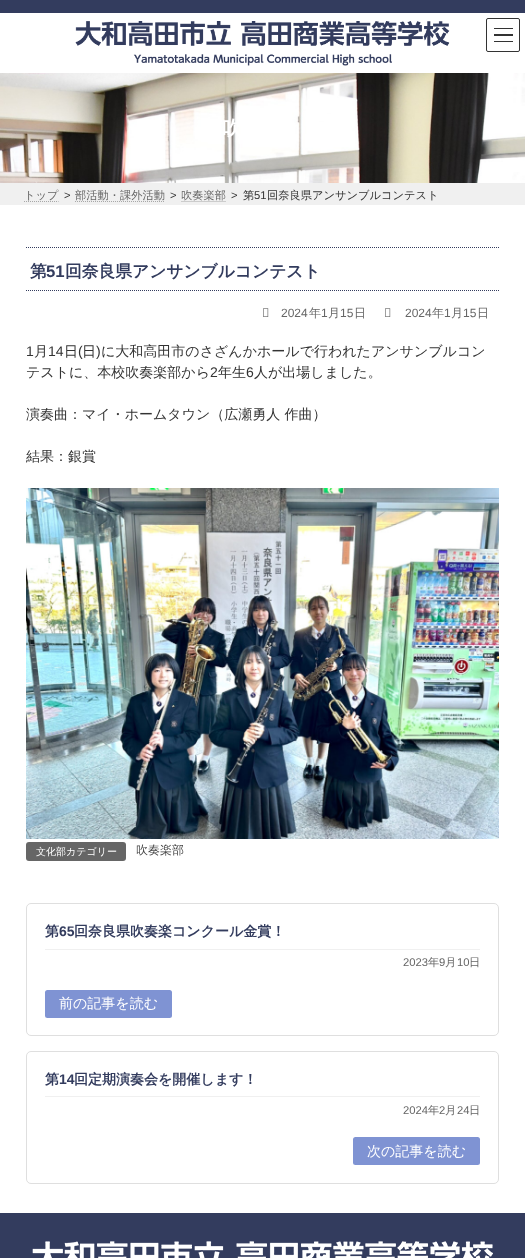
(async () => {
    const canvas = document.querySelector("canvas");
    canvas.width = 525;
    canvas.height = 1258;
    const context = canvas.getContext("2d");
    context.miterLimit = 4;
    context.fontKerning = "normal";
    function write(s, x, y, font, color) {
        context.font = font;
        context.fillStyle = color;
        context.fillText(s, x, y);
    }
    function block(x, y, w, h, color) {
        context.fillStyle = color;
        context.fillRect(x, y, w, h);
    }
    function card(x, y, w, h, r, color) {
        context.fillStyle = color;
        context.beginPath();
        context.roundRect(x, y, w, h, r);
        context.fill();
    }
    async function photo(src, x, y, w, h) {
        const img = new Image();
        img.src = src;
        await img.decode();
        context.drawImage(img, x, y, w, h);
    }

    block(0, 0, 525, 1258, "rgb(255, 255, 255)");
    block(0, 0, 525, 13, "rgb(51, 60, 94)");
    await photo("media/1.png", 75, 21, 375, 45);
    block(494, 28, 19, 1, "rgb(51, 51, 51)");
    block(494, 34, 19, 2, "rgb(51, 51, 51)");
    block(494, 41, 19, 1, "rgb(51, 51, 51)");
    context.beginPath();
    context.roundRect(486.5, 18.5, 33, 33, 1.5);
    context.strokeStyle = "rgb(51, 51, 51)";
    context.stroke();
    await photo("media/2.png", 0, 73, 525, 110);
    context.letterSpacing = "2px";
    write("吹", 222, 135, "bold 20px WenQuanYi Zen Hei", "rgb(255, 255, 255)");
    block(0, 183, 525, 22, "rgb(240, 240, 240)");
    context.letterSpacing = "0px";
    write("トップ", 24, 199, "500 11.25px WenQuanYi Zen Hei", "rgb(102, 102, 102)");
    context.beginPath();
    context.moveTo(24, 201.5);
    context.lineTo(58.5, 201.5);
    context.strokeStyle = "rgb(168, 168, 168)";
    context.setLineDash([1, 1]);
    context.stroke();
    write(">", 64, 199, "11.25px Liberation Sans", "rgb(51, 51, 51)");
    write("部活動・課外活動", 75, 199, "500 11.25px WenQuanYi Zen Hei", "rgb(102, 102, 102)");
    context.beginPath();
    context.moveTo(75, 201.5);
    context.lineTo(164.5, 201.5);
    context.stroke();
    write(">", 170, 199, "11.25px Liberation Sans", "rgb(51, 51, 51)");
    write("吹奏楽部", 181, 199, "500 11.25px WenQuanYi Zen Hei", "rgb(102, 102, 102)");
    context.beginPath();
    context.moveTo(181.5, 201.5);
    context.lineTo(226, 201.5);
    context.stroke();
    write(">", 231, 199, "11.25px Liberation Sans", "rgb(51, 51, 51)");
    write("第", 243, 199, "500 11.25px WenQuanYi Zen Hei", "rgb(51, 51, 51)");
    write("51", 254, 199, "11.25px Liberation Sans", "rgb(51, 51, 51)");
    write("回奈良県アンサンブルコンテスト", 267, 199, "500 11.25px WenQuanYi Zen Hei", "rgb(51, 51, 51)");
    context.beginPath();
    context.moveTo(26, 247.5);
    context.lineTo(499, 247.5);
    context.strokeStyle = "rgb(51, 60, 94)";
    context.stroke();
    context.beginPath();
    context.moveTo(26, 290.5);
    context.lineTo(499, 290.5);
    context.stroke();
    write("第", 30, 277, "bold 16.75px WenQuanYi Zen Hei", "rgb(51, 60, 94)");
    write("51", 46, 277, "bold 16.75px Liberation Sans", "rgb(51, 60, 94)");
    write("回奈良県アンサンブルコンテスト", 65, 277, "bold 16.75px WenQuanYi Zen Hei", "rgb(51, 60, 94)");
    await photo("media/3.png", 263, 308, 6, 9);
    write("2024", 281, 317, "12px Liberation Sans", "rgb(102, 102, 102)");
    write("年", 309, 317, "500 12px WenQuanYi Zen Hei", "rgb(102, 102, 102)");
    write("1", 321, 317, "12px Liberation Sans", "rgb(102, 102, 102)");
    write("月", 328, 317, "500 12px WenQuanYi Zen Hei", "rgb(102, 102, 102)");
    write("15", 340, 317, "12px Liberation Sans", "rgb(102, 102, 102)");
    write("日", 354, 317, "500 12px WenQuanYi Zen Hei", "rgb(102, 102, 102)");
    await photo("media/3.png", 385, 308, 6, 9);
    write("2024", 405, 317, "12px Liberation Sans", "rgb(102, 102, 102)");
    write("年", 432, 317, "500 12px WenQuanYi Zen Hei", "rgb(102, 102, 102)");
    write("1", 444, 317, "12px Liberation Sans", "rgb(102, 102, 102)");
    write("月", 451, 317, "500 12px WenQuanYi Zen Hei", "rgb(102, 102, 102)");
    write("15", 463, 317, "12px Liberation Sans", "rgb(102, 102, 102)");
    write("日", 477, 317, "500 12px WenQuanYi Zen Hei", "rgb(102, 102, 102)");
    write("1", 26, 356, "14px Liberation Sans", "rgb(51, 51, 51)");
    write("月", 34, 356, "500 14px WenQuanYi Zen Hei", "rgb(51, 51, 51)");
    write("14", 48, 356, "14px Liberation Sans", "rgb(51, 51, 51)");
    write("日", 64, 356, "500 14px WenQuanYi Zen Hei", "rgb(51, 51, 51)");
    write("(", 78, 356, "14px Liberation Sans", "rgb(51, 51, 51)");
    write("日", 82, 356, "500 14px WenQuanYi Zen Hei", "rgb(51, 51, 51)");
    write(")", 96, 356, "14px Liberation Sans", "rgb(51, 51, 51)");
    write("に大和高田市のさざんかホールで行われたアンサンブルコン", 101, 356, "500 14px WenQuanYi Zen Hei", "rgb(51, 51, 51)");
    write("テストに、本校吹奏楽部から", 26, 377, "500 14px WenQuanYi Zen Hei", "rgb(51, 51, 51)");
    write("2", 210, 377, "14px Liberation Sans", "rgb(51, 51, 51)");
    write("年生", 218, 377, "500 14px WenQuanYi Zen Hei", "rgb(51, 51, 51)");
    write("6", 246, 377, "14px Liberation Sans", "rgb(51, 51, 51)");
    write("人が出場しました。", 254, 377, "500 14px WenQuanYi Zen Hei", "rgb(51, 51, 51)");
    write("演奏曲：マイ・ホームタウン（広瀬勇人 作曲）", 26, 419, "500 14px WenQuanYi Zen Hei", "rgb(51, 51, 51)");
    write("結果：銀賞", 26, 461, "500 14px WenQuanYi Zen Hei", "rgb(51, 51, 51)");
    await photo("media/4.png", 26, 488, 473, 351);
    card(26, 842, 100, 19, 3, "rgb(102, 102, 102)");
    write("文化部カテゴリー", 36, 855, "500 10px WenQuanYi Zen Hei", "rgb(255, 255, 255)");
    write("吹奏楽部", 136, 854, "500 12px WenQuanYi Zen Hei", "rgb(70, 70, 70)");
    context.beginPath();
    context.roundRect(26.5, 903.5, 472, 132, 4.5);
    context.strokeStyle = "rgb(223, 223, 223)";
    context.setLineDash([]);
    context.stroke();
    block(45, 949, 435, 1, "rgb(240, 240, 240)");
    write("第", 45, 936, "bold 14px WenQuanYi Zen Hei", "rgb(51, 60, 94)");
    write("65", 59, 936, "bold 14px Liberation Sans", "rgb(51, 60, 94)");
    write("回奈良県吹奏楽コンクール金賞！", 74, 936, "bold 14px WenQuanYi Zen Hei", "rgb(51, 60, 94)");
    write("2023", 403, 966, "11.25px Liberation Sans", "rgb(102, 102, 102)");
    write("年", 428, 966, "500 11.25px WenQuanYi Zen Hei", "rgb(102, 102, 102)");
    write("9", 439, 966, "11.25px Liberation Sans", "rgb(102, 102, 102)");
    write("月", 445, 966, "500 11.25px WenQuanYi Zen Hei", "rgb(102, 102, 102)");
    write("10", 457, 966, "11.25px Liberation Sans", "rgb(102, 102, 102)");
    write("日", 469, 966, "500 11.25px WenQuanYi Zen Hei", "rgb(102, 102, 102)");
    card(45, 990, 127, 28, 2.5, "rgb(127, 147, 211)");
    write("前の記事を読む", 59, 1008, "500 14px WenQuanYi Zen Hei", "rgb(255, 255, 255)");
    context.beginPath();
    context.roundRect(26.5, 1051.5, 472, 132, 4.5);
    context.stroke();
    block(45, 1096, 435, 1, "rgb(240, 240, 240)");
    write("第", 45, 1084, "bold 14px WenQuanYi Zen Hei", "rgb(51, 60, 94)");
    write("14", 59, 1084, "bold 14px Liberation Sans", "rgb(51, 60, 94)");
    write("回定期演奏会を開催します！", 74, 1084, "bold 14px WenQuanYi Zen Hei", "rgb(51, 60, 94)");
    write("2024", 403, 1114, "11.25px Liberation Sans", "rgb(102, 102, 102)");
    write("年", 428, 1114, "500 11.25px WenQuanYi Zen Hei", "rgb(102, 102, 102)");
    write("2", 439, 1114, "11.25px Liberation Sans", "rgb(102, 102, 102)");
    write("月", 445, 1114, "500 11.25px WenQuanYi Zen Hei", "rgb(102, 102, 102)");
    write("24", 457, 1114, "11.25px Liberation Sans", "rgb(102, 102, 102)");
    write("日", 469, 1114, "500 11.25px WenQuanYi Zen Hei", "rgb(102, 102, 102)");
    card(353, 1137, 127, 28, 2.5, "rgb(127, 147, 211)");
    write("次の記事を読む", 367, 1156, "500 14px WenQuanYi Zen Hei", "rgb(255, 255, 255)");
    block(0, 1213, 525, 45, "rgb(51, 60, 94)");
    await photo("media/5.png", 32, 1241, 461, 17);
})();
